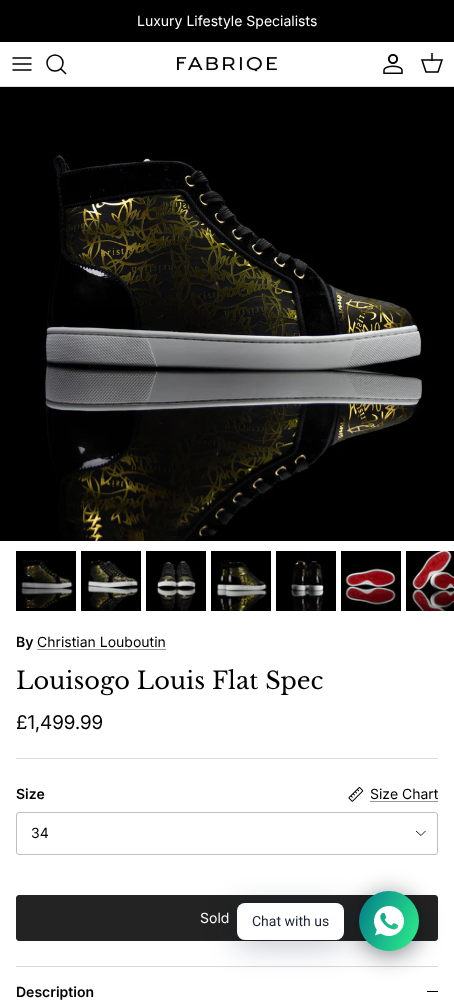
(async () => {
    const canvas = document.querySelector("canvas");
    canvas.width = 454;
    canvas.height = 1001;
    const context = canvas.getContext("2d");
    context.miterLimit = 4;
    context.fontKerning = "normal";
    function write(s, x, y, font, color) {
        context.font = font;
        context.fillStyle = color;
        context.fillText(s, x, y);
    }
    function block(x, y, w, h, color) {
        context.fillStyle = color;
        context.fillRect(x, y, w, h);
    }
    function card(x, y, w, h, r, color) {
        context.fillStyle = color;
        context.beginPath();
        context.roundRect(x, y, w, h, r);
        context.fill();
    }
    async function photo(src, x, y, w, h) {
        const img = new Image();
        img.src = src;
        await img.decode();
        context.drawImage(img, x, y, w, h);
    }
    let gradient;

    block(0, 0, 454, 1001, "rgb(255, 255, 255)");
    block(0, 0, 454, 42, "rgb(0, 0, 0)");
    write("Luxury Lifestyle Specialists", 137, 26, "14px Inter", "rgb(255, 255, 255)");
    block(0, 86, 454, 1, "rgb(226, 226, 226)");
    context.beginPath();
    context.moveTo(13, 64);
    context.lineTo(31, 64);
    context.moveTo(13, 58);
    context.lineTo(31, 58);
    context.moveTo(13, 70);
    context.lineTo(31, 70);
    context.strokeStyle = "rgb(0, 0, 0)";
    context.lineWidth = 1.5;
    context.lineCap = "round";
    context.lineJoin = "round";
    context.stroke();
    context.beginPath();
    context.arc(55, 63, 8, 0, Math.PI * 2);
    context.stroke();
    context.beginPath();
    context.moveTo(61, 69);
    context.lineTo(65.5, 73.5);
    context.lineCap = "square";
    context.lineJoin = "miter";
    context.stroke();
    await photo("media/1.png", 177, 57, 100, 15);
    await photo("media/2.png", 383, 54, 20, 20);
    context.beginPath();
    context.moveTo(422, 60);
    context.lineTo(442, 60);
    context.lineTo(438, 72);
    context.lineTo(426, 72);
    context.closePath();
    context.lineCap = "butt";
    context.stroke();
    block(431, 53, 2, 8, "rgba(0, 0, 0, 0.75)");
    await photo("media/3.png", 0, 87, 454, 454);
    await photo("media/4.png", 16, 551, 60, 57);
    block(16, 608, 60, 3, "rgb(0, 0, 0)");
    await photo("media/5.png", 81, 551, 60, 60);
    await photo("media/6.png", 146, 551, 60, 60);
    await photo("media/7.png", 211, 551, 60, 60);
    await photo("media/8.png", 276, 551, 60, 60);
    await photo("media/9.png", 341, 551, 60, 60);
    await photo("media/10.png", 406, 551, 48, 60);
    write("By", 16, 647, "600 14px Inter", "rgb(0, 0, 0)");
    write("Christian Louboutin", 37, 647, "14px Inter", "rgb(0, 0, 0)");
    block(37, 649, 129, 1, "rgb(153, 153, 153)");
    write("Louisogo Louis Flat Spec", 16, 689, "24px Libre Baskerville", "rgb(0, 0, 0)");
    write("£1,499.99", 16, 729, "19px 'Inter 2'", "rgb(0, 0, 0)");
    block(16, 758, 422, 1, "rgb(219, 219, 219)");
    write("Size", 16, 799, "600 14px Inter", "rgb(0, 0, 0)");
    await photo("media/11.png", 348, 787, 16, 15);
    write("Size Chart", 370, 799, "14px Inter", "rgb(0, 0, 0)");
    block(370, 801, 68, 1, "rgb(153, 153, 153)");
    context.beginPath();
    context.roundRect(16.5, 812.5, 421, 42, 2.5);
    context.strokeStyle = "rgb(191, 191, 191)";
    context.lineWidth = 1;
    context.stroke();
    write("34", 31, 838, "14px Inter", "rgb(0, 0, 0)");
    context.beginPath();
    context.moveTo(425.5, 831);
    context.lineTo(421, 835.5);
    context.lineTo(416, 831);
    context.strokeStyle = "rgb(0, 0, 0)";
    context.lineWidth = 0.9;
    context.stroke();
    context.fillStyle = "rgb(35, 35, 35)";
    context.beginPath();
    context.roundRect(16.5, 895.5, 421, 45, 2.5);
    context.fill();
    context.strokeStyle = "rgb(35, 35, 35)";
    context.lineWidth = 1;
    context.stroke();
    write("Sold", 200, 923, "14px Inter", "rgb(255, 255, 255)");
    block(16, 966, 422, 1, "rgb(217, 217, 217)");
    write("Description", 16, 997, "600 14px Inter", "rgb(0, 0, 0)");
    block(427, 991, 11, 1, "rgb(0, 0, 0)");
    context.fillStyle = "rgba(2, 6, 16, 0.5)";
    context.filter = "blur(12px)";
    context.beginPath();
    context.roundRect(359, 895, 60, 60, 30);
    context.fill();
    context.filter = "none";
    gradient = context.createLinearGradient(353, 904, 425, 938);
    gradient.addColorStop(0, "rgb(4, 124, 141)");
    gradient.addColorStop(1, "rgb(47, 242, 137)");
    context.fillStyle = gradient;
    context.beginPath();
    context.arc(389, 921, 30, 0, Math.PI * 2);
    context.fill();
    context.fillStyle = "rgba(0, 18, 46, 0.24)";
    context.filter = "blur(16px)";
    context.beginPath();
    context.roundRect(237, 909, 107, 37, 8);
    context.fill();
    context.filter = "none";
    card(237, 903, 107, 37, 8, "rgb(255, 255, 255)");
    write("Chat with us", 252, 926, "14px Roboto", "rgb(30, 36, 51)");
    await photo("media/12.png", 374, 906, 30, 30);
})();
